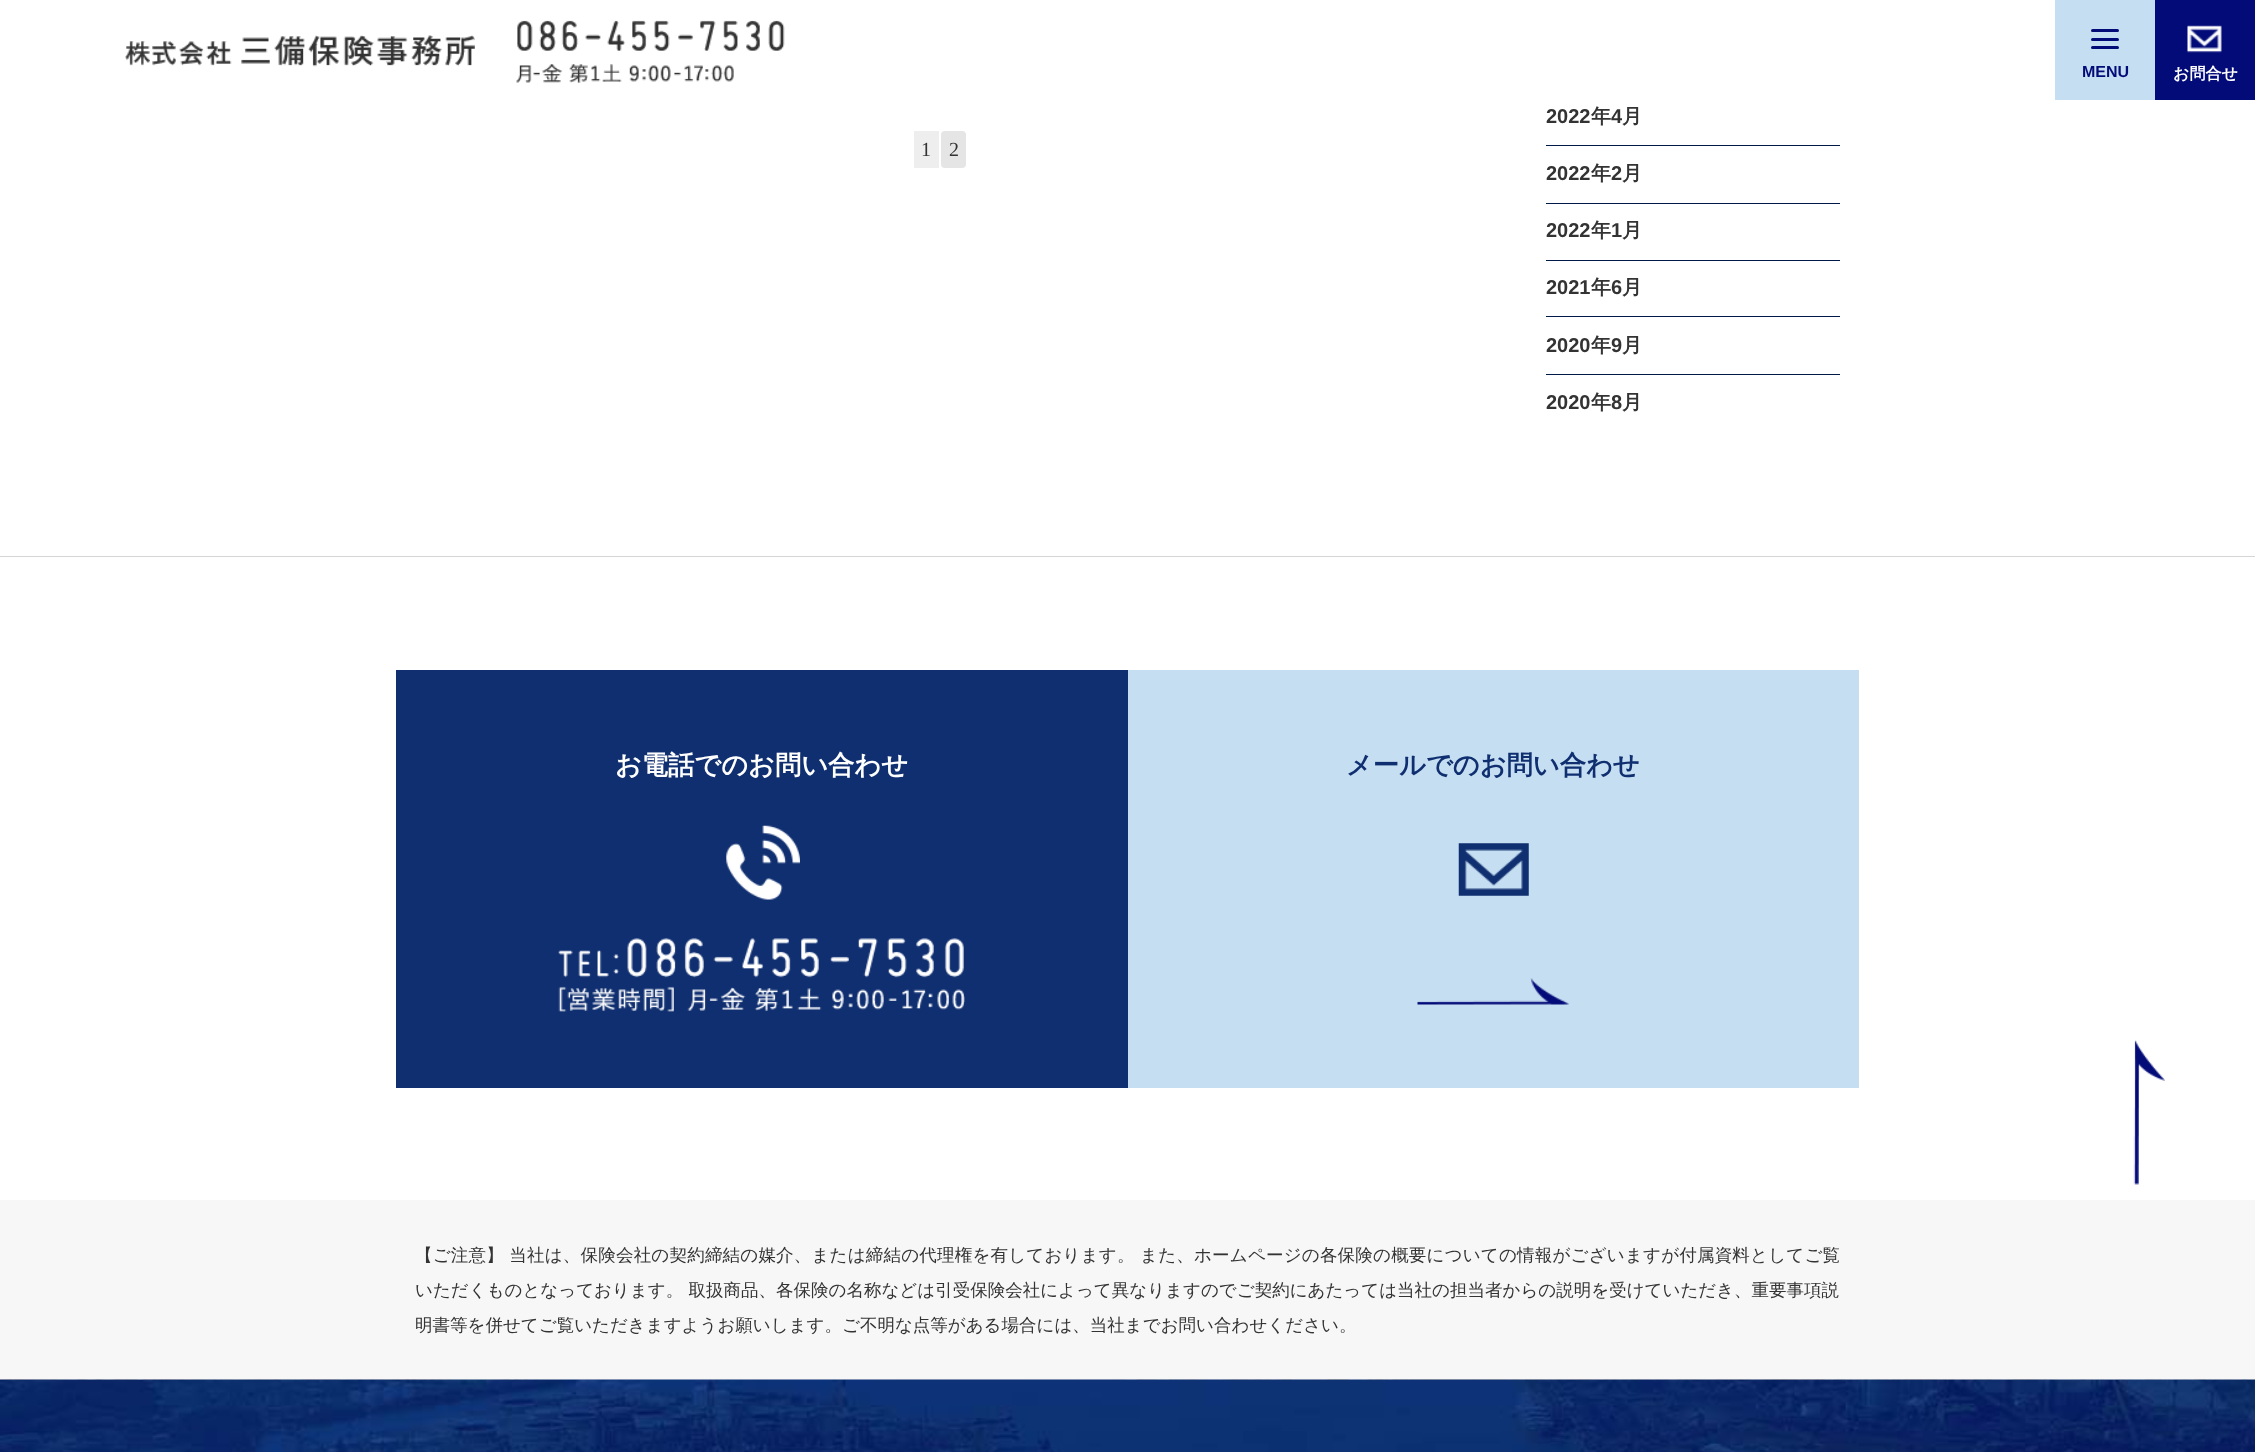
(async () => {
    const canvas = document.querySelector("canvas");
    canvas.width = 2255;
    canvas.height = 1452;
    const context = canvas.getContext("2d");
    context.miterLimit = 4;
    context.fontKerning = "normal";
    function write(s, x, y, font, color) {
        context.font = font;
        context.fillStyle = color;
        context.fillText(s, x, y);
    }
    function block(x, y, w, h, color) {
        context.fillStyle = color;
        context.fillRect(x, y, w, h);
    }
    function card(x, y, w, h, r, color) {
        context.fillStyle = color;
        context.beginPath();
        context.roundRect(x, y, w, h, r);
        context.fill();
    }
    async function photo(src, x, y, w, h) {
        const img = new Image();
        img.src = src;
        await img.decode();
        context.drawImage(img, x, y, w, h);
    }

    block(0, 0, 2255, 1452, "rgb(255, 255, 255)");
    await photo("media/1.png", 125, 35, 350, 32);
    await photo("media/2.png", 516, 20, 269, 63);
    block(2055, 0, 100, 100, "rgb(198, 222, 241)");
    card(2091, 29, 28, 3, 1.5, "rgb(3, 11, 120)");
    card(2091, 38, 28, 3, 1.5, "rgb(3, 11, 120)");
    card(2091, 46, 28, 3, 1.5, "rgb(3, 11, 120)");
    write("MENU", 2082, 77, "bold 16px Liberation Sans", "rgb(3, 11, 120)");
    block(2155, 0, 100, 100, "rgb(3, 11, 120)");
    await photo("media/3.png", 2187, 25, 35, 28);
    write("お問合せ", 2173, 79, "bold 16px WenQuanYi Zen Hei", "rgb(255, 255, 255)");
    block(914, 131, 25, 37, "rgb(238, 238, 238)");
    write("1", 921, 156, "20px Liberation Serif", "rgb(51, 51, 51)");
    card(941, 131, 25, 37, 4, "rgb(229, 229, 229)");
    write("2", 949, 156, "20px Liberation Serif", "rgb(51, 51, 51)");
    write("2022", 1546, 123, "bold 20px Liberation Sans", "rgb(51, 51, 51)");
    write("年", 1591, 123, "bold 20px WenQuanYi Zen Hei", "rgb(51, 51, 51)");
    write("4", 1611, 123, "bold 20px Liberation Sans", "rgb(51, 51, 51)");
    write("月", 1622, 123, "bold 20px WenQuanYi Zen Hei", "rgb(51, 51, 51)");
    block(1546, 145, 294, 1, "rgb(0, 24, 74)");
    write("2022", 1546, 180, "bold 20px Liberation Sans", "rgb(51, 51, 51)");
    write("年", 1591, 180, "bold 20px WenQuanYi Zen Hei", "rgb(51, 51, 51)");
    write("2", 1611, 180, "bold 20px Liberation Sans", "rgb(51, 51, 51)");
    write("月", 1622, 180, "bold 20px WenQuanYi Zen Hei", "rgb(51, 51, 51)");
    block(1546, 203, 294, 1, "rgb(0, 24, 74)");
    write("2022", 1546, 237, "bold 20px Liberation Sans", "rgb(51, 51, 51)");
    write("年", 1591, 237, "bold 20px WenQuanYi Zen Hei", "rgb(51, 51, 51)");
    write("1", 1611, 237, "bold 20px Liberation Sans", "rgb(51, 51, 51)");
    write("月", 1622, 237, "bold 20px WenQuanYi Zen Hei", "rgb(51, 51, 51)");
    block(1546, 260, 294, 1, "rgb(0, 24, 74)");
    write("2021", 1546, 294, "bold 20px Liberation Sans", "rgb(51, 51, 51)");
    write("年", 1591, 294, "bold 20px WenQuanYi Zen Hei", "rgb(51, 51, 51)");
    write("6", 1611, 294, "bold 20px Liberation Sans", "rgb(51, 51, 51)");
    write("月", 1622, 294, "bold 20px WenQuanYi Zen Hei", "rgb(51, 51, 51)");
    block(1546, 316, 294, 1, "rgb(0, 24, 74)");
    write("2020", 1546, 352, "bold 20px Liberation Sans", "rgb(51, 51, 51)");
    write("年", 1591, 352, "bold 20px WenQuanYi Zen Hei", "rgb(51, 51, 51)");
    write("9", 1611, 352, "bold 20px Liberation Sans", "rgb(51, 51, 51)");
    write("月", 1622, 352, "bold 20px WenQuanYi Zen Hei", "rgb(51, 51, 51)");
    block(1546, 374, 294, 1, "rgb(0, 24, 74)");
    write("2020", 1546, 409, "bold 20px Liberation Sans", "rgb(51, 51, 51)");
    write("年", 1591, 409, "bold 20px WenQuanYi Zen Hei", "rgb(51, 51, 51)");
    write("8", 1611, 409, "bold 20px Liberation Sans", "rgb(51, 51, 51)");
    write("月", 1622, 409, "bold 20px WenQuanYi Zen Hei", "rgb(51, 51, 51)");
    block(0, 556, 2255, 1, "rgb(213, 213, 213)");
    block(396, 670, 732, 418, "rgb(16, 47, 112)");
    write("お電話でのお問い合わせ", 615, 774, "bold 26.25px WenQuanYi Zen Hei", "rgb(255, 255, 255)");
    await photo("media/4.png", 726, 825, 74, 75);
    await photo("media/5.png", 558, 938, 407, 74);
    block(1128, 670, 731, 418, "rgb(198, 222, 241)");
    write("メールでのお問い合わせ", 1346, 774, "bold 26.25px WenQuanYi Zen Hei", "rgb(16, 47, 112)");
    await photo("media/6.png", 1458, 843, 71, 53);
    await photo("media/7.png", 1417, 978, 152, 27);
    block(0, 1200, 2255, 180, "rgb(247, 247, 247)");
    await photo("media/8.png", 0, 1379, 2255, 73);
    await photo("media/9.png", 2133, 1040, 32, 145);
    context.letterSpacing = "0.2px";
    write("【ご注意】 当社は、保険会社の契約締結の媒介、または締結の代理権を有しております。 また、ホームページの各保険の概要についての情報がございますが付属資料としてご覧", 415, 1261, "500 17.5px WenQuanYi Zen Hei", "rgb(51, 51, 51)");
    context.letterSpacing = "0px";
    write("いただくものとなっております。 取扱商品、各保険の名称などは引受保険会社によって異なりますのでご契約にあたっては当社の担当者からの説明を受けていただき、重要事項説", 415, 1296, "500 17.5px WenQuanYi Zen Hei", "rgb(51, 51, 51)");
    write("明書等を併せてご覧いただきますようお願いします。ご不明な点等がある場合には、当社までお問い合わせください。", 415, 1331, "500 17.5px WenQuanYi Zen Hei", "rgb(51, 51, 51)");
})();
